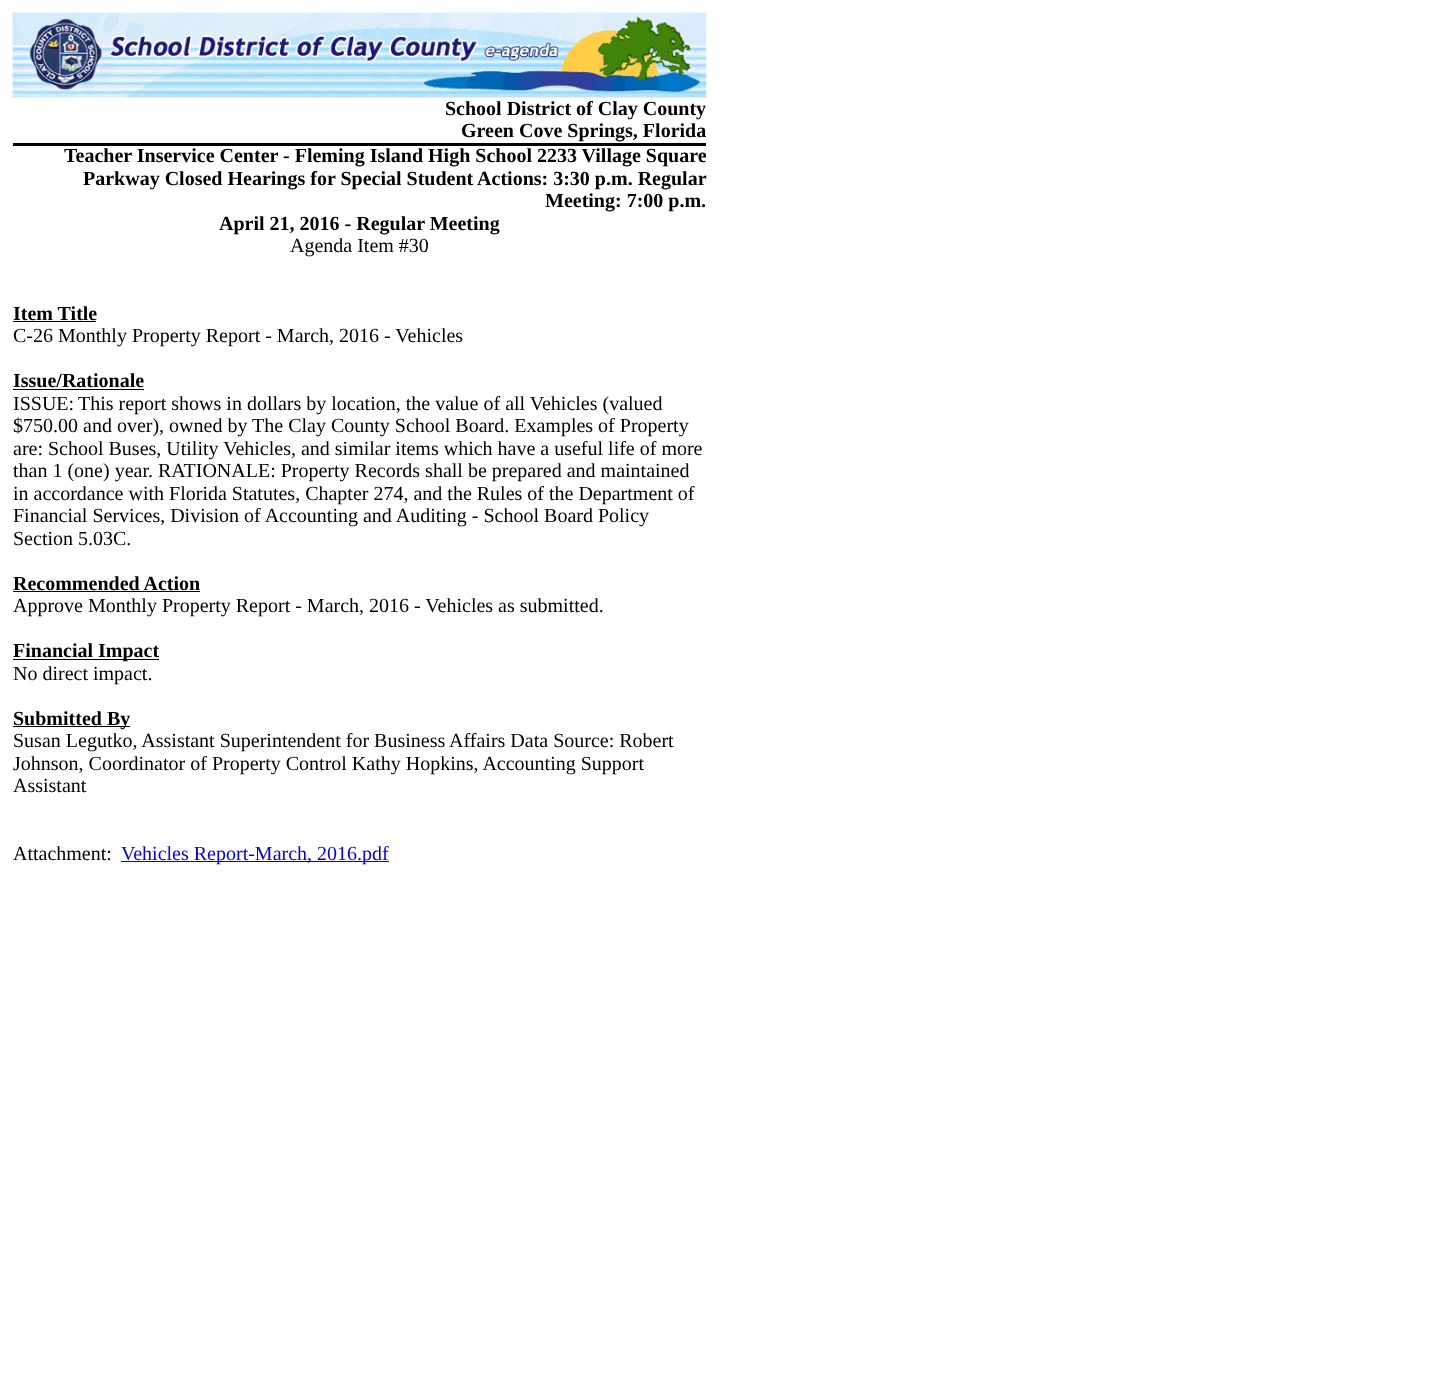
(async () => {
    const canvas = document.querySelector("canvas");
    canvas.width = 1433;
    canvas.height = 1390;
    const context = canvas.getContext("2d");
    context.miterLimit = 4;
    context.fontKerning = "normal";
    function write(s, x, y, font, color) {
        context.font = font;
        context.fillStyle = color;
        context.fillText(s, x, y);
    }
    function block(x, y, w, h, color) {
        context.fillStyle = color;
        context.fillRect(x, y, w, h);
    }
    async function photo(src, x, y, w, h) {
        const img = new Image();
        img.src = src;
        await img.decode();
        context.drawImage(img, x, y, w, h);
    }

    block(0, 0, 1433, 1390, "rgb(255, 255, 255)");
    await photo("media/1.png", 12, 12, 695, 86);
    write("School District of Clay County", 445, 115, "bold 20px Liberation Serif", "rgb(0, 0, 0)");
    write("Green Cove Springs, Florida", 461, 137, "bold 20px Liberation Serif", "rgb(0, 0, 0)");
    block(13, 143, 693, 3, "rgb(0, 0, 0)");
    write("Teacher Inservice Center - Fleming Island High School 2233 Village Square", 64, 162, "bold 20px Liberation Serif", "rgb(0, 0, 0)");
    write("Parkway Closed Hearings for Special Student Actions: 3:30 p.m. Regular", 83, 185, "bold 20px Liberation Serif", "rgb(0, 0, 0)");
    write("Meeting: 7:00 p.m.", 545, 207, "bold 20px Liberation Serif", "rgb(0, 0, 0)");
    write("April 21, 2016 - Regular Meeting", 219, 230, "bold 20px Liberation Serif", "rgb(0, 0, 0)");
    write("Agenda Item #30", 290, 252, "20px Liberation Serif", "rgb(0, 0, 0)");
    write("Item Title", 13, 320, "bold 20px Liberation Serif", "rgb(0, 0, 0)");
    block(13, 321, 83, 1, "rgb(0, 0, 0)");
    write("C-26 Monthly Property Report - March, 2016 - Vehicles", 13, 342, "20px Liberation Serif", "rgb(0, 0, 0)");
    write("Issue/Rationale", 13, 387, "bold 20px Liberation Serif", "rgb(0, 0, 0)");
    block(13, 389, 131, 1, "rgb(0, 0, 0)");
    write("ISSUE:", 13, 410, "20px Liberation Serif", "rgb(0, 0, 0)");
    write("This report shows in dollars by location, the value of all Vehicles (valued", 78, 410, "20px Liberation Serif", "rgb(0, 0, 0)");
    write("$750.00 and over), owned by The Clay County School Board. Examples of Property", 13, 432, "20px Liberation Serif", "rgb(0, 0, 0)");
    write("are: School Buses, Utility Vehicles, and similar items which have a useful life of more", 13, 455, "20px Liberation Serif", "rgb(0, 0, 0)");
    write("than 1 (one) year. RATIONALE: Property Records shall be prepared and maintained", 13, 477, "20px Liberation Serif", "rgb(0, 0, 0)");
    write("in accordance with Florida Statutes, Chapter 274, and the Rules of the Department of", 13, 500, "20px Liberation Serif", "rgb(0, 0, 0)");
    write("Financial Services, Division of Accounting and Auditing - School Board Policy", 13, 522, "20px Liberation Serif", "rgb(0, 0, 0)");
    write("Section 5.03C.", 13, 545, "20px Liberation Serif", "rgb(0, 0, 0)");
    write("Recommended Action", 13, 590, "bold 20px Liberation Serif", "rgb(0, 0, 0)");
    block(13, 591, 187, 1, "rgb(0, 0, 0)");
    write("Approve Monthly Property Report - March, 2016 - Vehicles as submitted.", 13, 612, "20px Liberation Serif", "rgb(0, 0, 0)");
    block(13, 659, 146, 1, "rgb(0, 0, 0)");
    write("Financial Impact", 13, 657, "bold 20px Liberation Serif", "rgb(0, 0, 0)");
    write("No direct impact.", 13, 680, "20px Liberation Serif", "rgb(0, 0, 0)");
    block(13, 726, 117, 1, "rgb(0, 0, 0)");
    write("Submitted By", 13, 725, "bold 20px Liberation Serif", "rgb(0, 0, 0)");
    write("Susan Legutko, Assistant Superintendent for Business Affairs Data Source: Robert", 13, 747, "20px Liberation Serif", "rgb(0, 0, 0)");
    write("Johnson, Coordinator of Property Control Kathy Hopkins, Accounting Support", 13, 770, "20px Liberation Serif", "rgb(0, 0, 0)");
    write("Assistant", 13, 792, "20px Liberation Serif", "rgb(0, 0, 0)");
    write("Attachment:", 13, 860, "20px Liberation Serif", "rgb(0, 0, 0)");
    block(121, 861, 268, 1, "rgb(0, 0, 238)");
    write("Vehicles Report-March, 2016.pdf", 121, 860, "20px Liberation Serif", "rgb(0, 0, 238)");
})();
